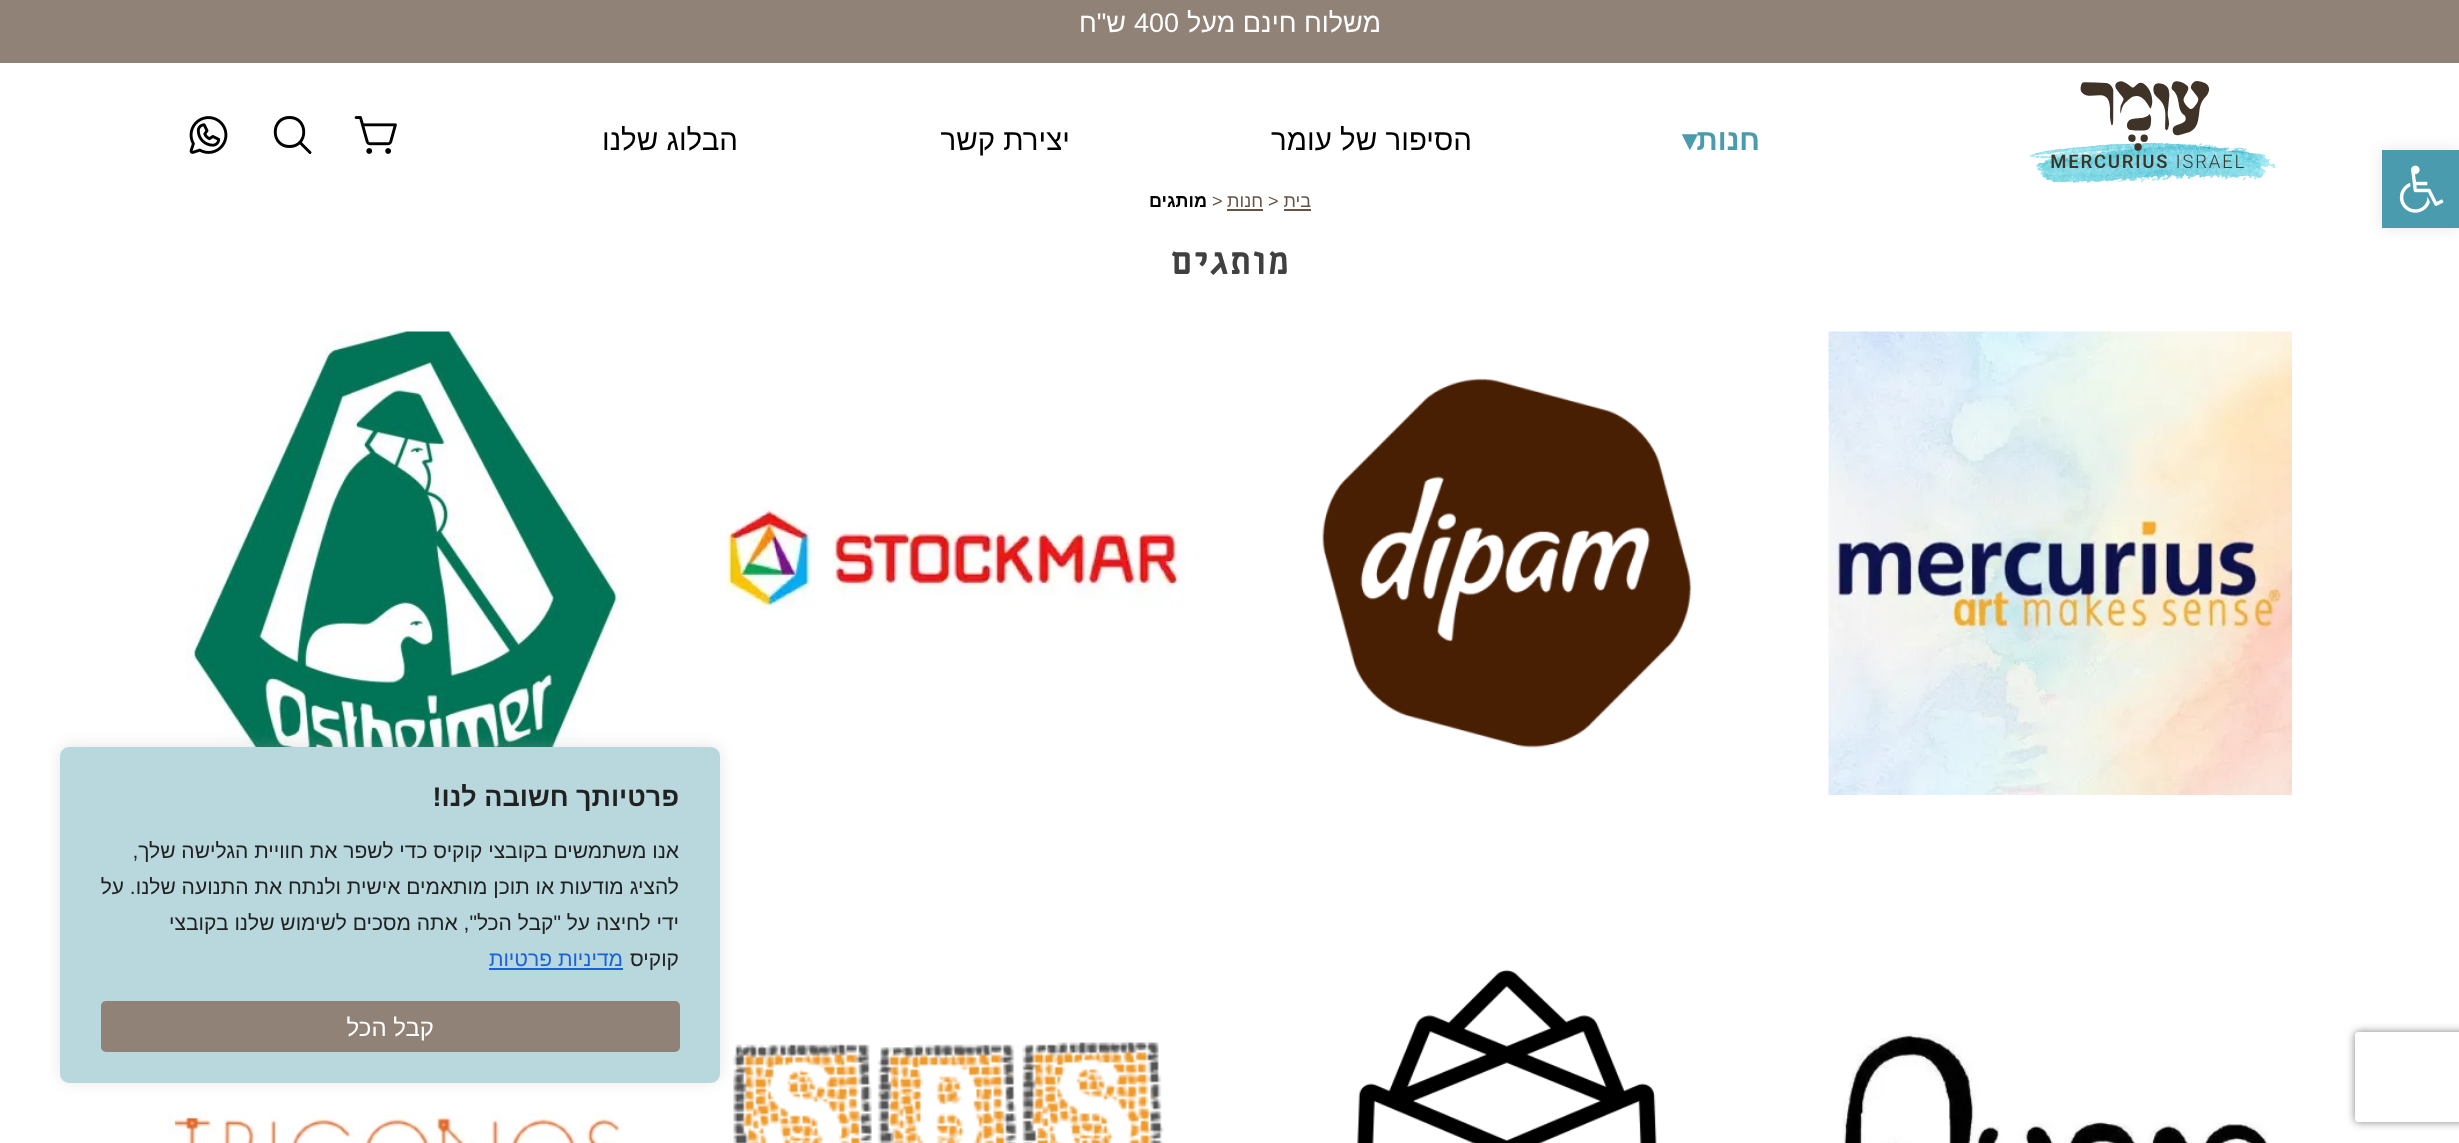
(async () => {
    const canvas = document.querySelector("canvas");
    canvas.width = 2459;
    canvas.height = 1143;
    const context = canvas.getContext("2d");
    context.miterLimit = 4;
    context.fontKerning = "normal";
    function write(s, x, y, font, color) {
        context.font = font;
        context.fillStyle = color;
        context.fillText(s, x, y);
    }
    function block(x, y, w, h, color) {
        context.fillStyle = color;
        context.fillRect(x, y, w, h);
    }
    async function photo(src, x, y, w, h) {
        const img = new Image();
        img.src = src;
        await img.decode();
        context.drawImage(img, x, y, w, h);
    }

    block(0, 0, 2459, 1143, "rgb(255, 255, 255)");
    context.fillStyle = "rgba(0, 0, 0, 0.1)";
    context.filter = "blur(7.5px)";
    context.beginPath();
    context.rect(2382, 150, 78, 78);
    context.fill();
    context.filter = "none";
    block(2382, 150, 77, 78, "rgb(73, 155, 173)");
    await photo("media/1.png", 2399, 165, 45, 48);
    block(0, 0, 2459, 63, "rgb(144, 130, 119)");
    context.direction = "rtl";
    write("משלוח חינם מעל", 1381, 32, "27px Liberation Sans", "rgb(255, 255, 255)");
    context.direction = "ltr";
    write("400", 1134, 32, "27px Liberation Sans", "rgb(255, 255, 255)");
    context.direction = "rtl";
    write("ש\"ח", 1126, 32, "27px Liberation Sans", "rgb(255, 255, 255)");
    await photo("media/2.png", 2030, 81, 246, 102);
    write("חנות", 1760, 150, "bold 29.5px Liberation Sans", "rgb(73, 155, 173)");
    context.direction = "ltr";
    write("▾", 1682, 150, "bold 29.5px DejaVu Sans", "rgb(73, 155, 173)");
    context.direction = "rtl";
    write("הסיפור של עומר", 1472, 150, "29.5px Liberation Sans", "rgb(0, 0, 0)");
    write("יצירת קשר", 1070, 150, "29.5px Liberation Sans", "rgb(0, 0, 0)");
    write("הבלוג שלנו", 738, 150, "29.5px Liberation Sans", "rgb(0, 0, 0)");
    await photo("media/3.png", 354, 116, 43, 38);
    context.beginPath();
    context.moveTo(289.5, 146.5);
    context.bezierCurveTo(308.5, 146.5, 308.5, 117.5, 289.5, 117.5);
    context.bezierCurveTo(270.5, 117.5, 270.5, 146.5, 289.5, 146.5);
    context.closePath();
    context.moveTo(300, 142.5);
    context.lineTo(310, 152.5);
    context.strokeStyle = "rgb(0, 0, 0)";
    context.lineWidth = 2.9;
    context.lineCap = "round";
    context.lineJoin = "round";
    context.stroke();
    await photo("media/4.png", 189, 116, 39, 38);
    write("בית", 1311, 207, "18px Liberation Sans", "rgb(102, 85, 71)");
    block(1284, 209, 27, 2, "rgb(102, 85, 71)");
    context.direction = "ltr";
    write(">", 1268, 207, "18px Liberation Sans", "rgb(102, 85, 71)");
    context.direction = "rtl";
    write("חנות", 1263, 207, "18px Liberation Sans", "rgb(102, 85, 71)");
    block(1227, 209, 36, 2, "rgb(102, 85, 71)");
    context.direction = "ltr";
    write(">", 1212, 207, "18px Liberation Sans", "rgb(102, 85, 71)");
    context.direction = "rtl";
    write("מותגים", 1207, 207, "bold 18px Liberation Sans", "rgb(0, 0, 0)");
    write("מותגים", 1290, 274, "bold 42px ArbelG", "rgb(64, 64, 64)");
    await photo("media/5.png", 1828, 331, 464, 464);
    await photo("media/6.png", 1322, 378, 370, 370);
    await photo("media/7.png", 722, 507, 463, 103);
    await photo("media/8.png", 186, 331, 445, 416);
    await photo("media/9.png", 1842, 1033, 426, 110);
    await photo("media/10.png", 1357, 969, 300, 174);
    await photo("media/11.png", 733, 1040, 431, 103);
    await photo("media/12.png", 168, 1113, 455, 30);
    context.fillStyle = "rgba(172, 171, 171, 0.3)";
    context.filter = "blur(7.5px)";
    context.beginPath();
    context.roundRect(60, 746, 660, 336, 9);
    context.fill();
    context.filter = "none";
    context.fillStyle = "rgb(184, 216, 222)";
    context.beginPath();
    context.roundRect(61, 748, 658, 334, 8);
    context.fill();
    context.strokeStyle = "rgb(184, 216, 222)";
    context.lineWidth = 2;
    context.lineJoin = "miter";
    context.stroke();
    write("פרטיותך חשובה לנו!", 679, 806, "bold 27px Liberation Sans", "rgb(33, 33, 33)");
    write("אנו משתמשים בקובצי קוקיס כדי לשפר את חוויית הגלישה שלך,", 679, 858, "21px Liberation Sans", "rgb(33, 33, 33)");
    write("להציג מודעות או תוכן מותאמים אישית ולנתח את התנועה שלנו. על", 679, 894, "21px Liberation Sans", "rgb(33, 33, 33)");
    write("ידי לחיצה על \"קבל הכל\", אתה מסכים לשימוש שלנו בקובצי", 679, 930, "21px Liberation Sans", "rgb(33, 33, 33)");
    write("קוקיס", 679, 966, "21px Liberation Sans", "rgb(33, 33, 33)");
    write("מדיניות פרטיות", 623, 966, "21px Liberation Sans", "rgb(24, 99, 220)");
    block(489, 968, 134, 2, "rgb(24, 99, 220)");
    context.fillStyle = "rgb(144, 130, 119)";
    context.beginPath();
    context.roundRect(102, 1002, 577, 49, 4);
    context.fill();
    context.strokeStyle = "rgb(144, 130, 119)";
    context.stroke();
    write("קבל הכל", 434, 1036, "24px Liberation Sans", "rgb(255, 255, 255)");
    context.save();
    context.beginPath();
    context.moveTo(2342, 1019);
    context.lineTo(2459, 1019);
    context.lineTo(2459, 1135);
    context.lineTo(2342, 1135);
    context.closePath();
    context.moveTo(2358, 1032);
    context.lineTo(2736, 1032);
    context.bezierCurveTo(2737.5, 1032, 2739, 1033.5, 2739, 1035);
    context.lineTo(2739, 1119);
    context.bezierCurveTo(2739, 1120.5, 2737.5, 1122, 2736, 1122);
    context.lineTo(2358, 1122);
    context.bezierCurveTo(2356.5, 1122, 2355, 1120.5, 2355, 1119);
    context.lineTo(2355, 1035);
    context.bezierCurveTo(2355, 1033.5, 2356.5, 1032, 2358, 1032);
    context.closePath();
    context.clip("evenodd");
    context.fillStyle = "rgb(128, 128, 128)";
    context.filter = "blur(4px)";
    context.beginPath();
    context.roundRect(2355, 1032, 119, 90, 3);
    context.fill();
    context.filter = "none";
    context.restore();
})();
